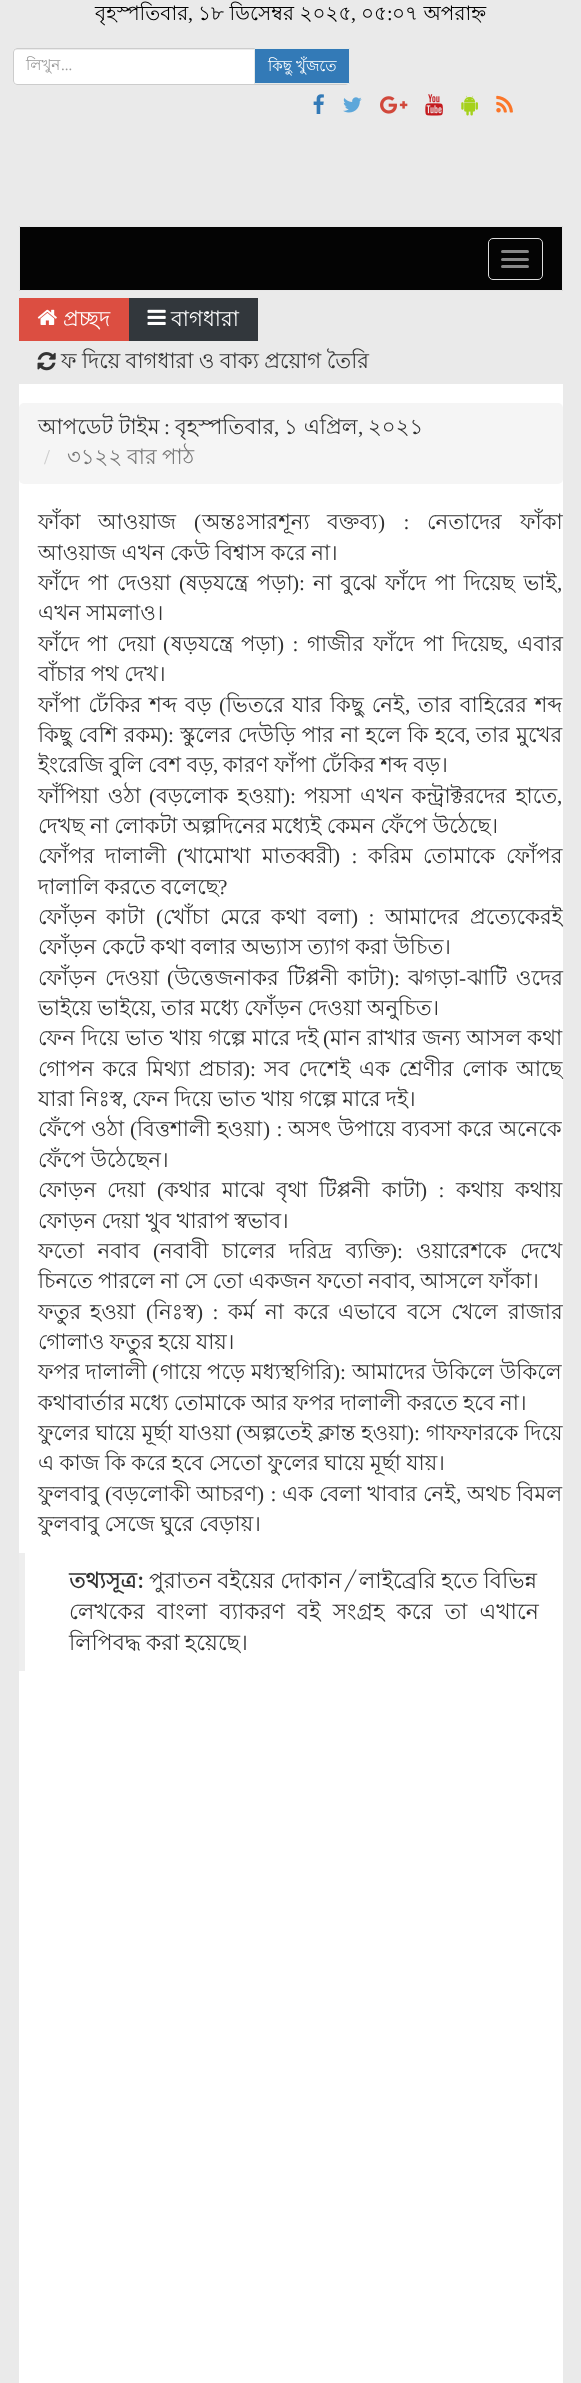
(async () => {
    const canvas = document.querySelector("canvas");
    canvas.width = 581;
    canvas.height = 2383;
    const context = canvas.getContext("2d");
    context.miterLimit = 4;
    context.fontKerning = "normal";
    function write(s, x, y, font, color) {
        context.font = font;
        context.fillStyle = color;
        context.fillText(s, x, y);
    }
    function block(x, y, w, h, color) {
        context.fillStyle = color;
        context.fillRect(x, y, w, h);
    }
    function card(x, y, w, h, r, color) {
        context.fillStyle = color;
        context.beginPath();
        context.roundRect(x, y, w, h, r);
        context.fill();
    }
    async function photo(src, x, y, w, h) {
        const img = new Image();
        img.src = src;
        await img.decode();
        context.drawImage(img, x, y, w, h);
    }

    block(0, 0, 581, 2383, "rgb(234, 234, 234)");
    write("বৃহস্পতিবার", 95, 20, "20px Lohit Bengali", "rgb(0, 0, 0)");
    write(",", 188, 20, "20px Liberation Serif", "rgb(0, 0, 0)");
    write("১৮ ডিসেম্বর ২০২৫", 198, 20, "20px Lohit Bengali", "rgb(0, 0, 0)");
    write(",", 351, 20, "20px Liberation Serif", "rgb(0, 0, 0)");
    write("০৫", 361, 20, "20px Lohit Bengali", "rgb(0, 0, 0)");
    write(":", 387, 20, "20px Liberation Serif", "rgb(0, 0, 0)");
    write("০৭ অপরাহ্ন", 392, 20, "20px Lohit Bengali", "rgb(0, 0, 0)");
    card(13, 48, 337, 37, 4, "rgb(255, 255, 255)");
    context.fillStyle = "rgb(236, 236, 236)";
    context.beginPath();
    context.moveTo(16, 50);
    context.lineTo(346, 50);
    context.bezierCurveTo(348, 50, 349, 51, 349, 52);
    context.bezierCurveTo(349, 50, 348, 49, 346, 49);
    context.lineTo(16, 49);
    context.bezierCurveTo(15, 49, 14, 50, 14, 52);
    context.bezierCurveTo(14, 51, 15, 50, 16, 50);
    context.closePath();
    context.fill();
    context.beginPath();
    context.roundRect(13.5, 48.5, 336, 36, 3.5);
    context.strokeStyle = "rgb(204, 204, 204)";
    context.stroke();
    write("লিখুন", 26, 70, "15px Lohit Bengali", "rgb(153, 153, 153)");
    write("...", 61, 70, "15px Liberation Serif", "rgb(153, 153, 153)");
    context.fillStyle = "rgb(51, 122, 183)";
    context.beginPath();
    context.roundRect(254.5, 48.5, 95, 35, 0.5);
    context.fill();
    context.strokeStyle = "rgb(230, 234, 233)";
    context.stroke();
    write("কিছু খুঁজতে", 268, 71, "15px Lohit Bengali", "rgb(255, 255, 255)");
    await photo("media/1.png", 313, 94, 11, 20);
    await photo("media/2.png", 343, 97, 19, 16);
    await photo("media/3.png", 380, 96, 28, 18);
    await photo("media/4.png", 425, 94, 18, 22);
    await photo("media/5.png", 461, 95, 17, 21);
    await photo("media/6.png", 496, 95, 17, 18);
    context.fillStyle = "rgb(4, 4, 4)";
    context.beginPath();
    context.rect(19.5, 226.5, 543, 64);
    context.fill();
    context.strokeStyle = "rgb(231, 231, 231)";
    context.stroke();
    context.beginPath();
    context.roundRect(488.5, 238.5, 54, 41, 4.5);
    context.strokeStyle = "rgb(221, 221, 221)";
    context.stroke();
    card(501, 250, 28, 3, 1.5, "rgb(136, 136, 136)");
    card(501, 258, 28, 3, 1.5, "rgb(136, 136, 136)");
    card(501, 265, 28, 3, 1.5, "rgb(136, 136, 136)");
    block(19, 384, 544, 1999, "rgb(255, 255, 255)");
    block(19, 298, 110, 43, "rgb(220, 78, 65)");
    await photo("media/7.png", 37, 309, 20, 16);
    write("প্রচ্ছদ", 63, 326, "21.25px Lohit Bengali", "rgb(255, 255, 255)");
    block(129, 298, 129, 43, "rgb(50, 55, 60)");
    await photo("media/8.png", 147, 309, 19, 16);
    write("বাগধারা", 171, 326, "21.25px Lohit Bengali", "rgb(255, 255, 255)");
    await photo("media/9.png", 37, 352, 19, 19);
    context.wordSpacing = "-0.5px";
    write("ফ দিয়ে বাগধারা ও বাক্য প্রয়োগ তৈরি", 61, 368, "21.25px Lohit Bengali", "rgb(51, 51, 51)");
    card(19, 403, 544, 81, 5, "rgb(245, 245, 245)");
    context.wordSpacing = "0px";
    write("আপডেট টাইম", 38, 434, "21.25px Lohit Bengali", "rgb(51, 51, 51)");
    write(":", 164, 434, "21.25px Liberation Serif", "rgb(51, 51, 51)");
    write("বৃহস্পতিবার", 175, 434, "21.25px Lohit Bengali", "rgb(51, 51, 51)");
    write(",", 274, 434, "21.25px Liberation Serif", "rgb(51, 51, 51)");
    write("১ এপ্রিল", 284, 434, "21.25px Lohit Bengali", "rgb(51, 51, 51)");
    write(",", 358, 434, "21.25px Liberation Serif", "rgb(51, 51, 51)");
    write("২০২১", 368, 434, "21.25px Lohit Bengali", "rgb(51, 51, 51)");
    write("/", 44, 464, "21.25px Liberation Serif", "rgb(204, 204, 204)");
    write("৩১২২", 67, 464, "21.25px Lohit Bengali", "rgb(119, 119, 119)");
    context.wordSpacing = "-0.5px";
    write("বার পাঠ", 127, 464, "21.25px Lohit Bengali", "rgb(119, 119, 119)");
    context.wordSpacing = "0px";
    write("ফাঁকা", 38, 529, "21.25px Lohit Bengali", "rgb(51, 51, 51)");
    write("আওয়াজ", 98, 529, "21.25px Lohit Bengali", "rgb(51, 51, 51)");
    write("(", 194, 529, "21.25px Liberation Serif", "rgb(51, 51, 51)");
    write("অন্তঃসারশূন্য", 202, 529, "21.25px Lohit Bengali", "rgb(51, 51, 51)");
    write("বক্তব্য", 327, 529, "21.25px Lohit Bengali", "rgb(51, 51, 51)");
    context.wordSpacing = "13px";
    write(") :", 378, 529, "21.25px Liberation Serif", "rgb(51, 51, 51)");
    context.wordSpacing = "0px";
    write("নেতাদের", 427, 529, "21.25px Lohit Bengali", "rgb(51, 51, 51)");
    write("ফাঁকা", 520, 529, "21.25px Lohit Bengali", "rgb(51, 51, 51)");
    context.wordSpacing = "-0.5px";
    write("আওয়াজ এখন কেউ বিশ্বাস করে না।", 38, 560, "21.25px Lohit Bengali", "rgb(51, 51, 51)");
    context.wordSpacing = "2.5px";
    write("ফাঁদে পা দেওয়া", 38, 590, "21.25px Lohit Bengali", "rgb(51, 51, 51)");
    context.wordSpacing = "0px";
    write("(", 179, 590, "21.25px Liberation Serif", "rgb(51, 51, 51)");
    context.wordSpacing = "2.5px";
    write("ষড়যন্ত্রে পড়া", 186, 590, "21.25px Lohit Bengali", "rgb(51, 51, 51)");
    context.wordSpacing = "0px";
    write("):", 292, 590, "21.25px Liberation Serif", "rgb(51, 51, 51)");
    context.wordSpacing = "2.5px";
    write("না বুঝে ফাঁদে পা দিয়েছ ভাই", 313, 590, "21.25px Lohit Bengali", "rgb(51, 51, 51)");
    context.wordSpacing = "0px";
    write(",", 557, 590, "21.25px Liberation Serif", "rgb(51, 51, 51)");
    context.wordSpacing = "-0.5px";
    write("এখন সামলাও।", 38, 620, "21.25px Lohit Bengali", "rgb(51, 51, 51)");
    context.wordSpacing = "0px";
    write("ফাঁদে", 38, 651, "21.25px Lohit Bengali", "rgb(51, 51, 51)");
    write("পা", 87, 651, "21.25px Lohit Bengali", "rgb(51, 51, 51)");
    write("দেয়া", 117, 651, "21.25px Lohit Bengali", "rgb(51, 51, 51)");
    write("(", 163, 651, "21.25px Liberation Serif", "rgb(51, 51, 51)");
    write("ষড়যন্ত্রে", 171, 651, "21.25px Lohit Bengali", "rgb(51, 51, 51)");
    write("পড়া", 241, 651, "21.25px Lohit Bengali", "rgb(51, 51, 51)");
    context.wordSpacing = "3px";
    write(") :", 277, 651, "21.25px Liberation Serif", "rgb(51, 51, 51)");
    context.wordSpacing = "0px";
    write("গাজীর", 307, 651, "21.25px Lohit Bengali", "rgb(51, 51, 51)");
    write("ফাঁদে", 373, 651, "21.25px Lohit Bengali", "rgb(51, 51, 51)");
    write("পা", 423, 651, "21.25px Lohit Bengali", "rgb(51, 51, 51)");
    write("দিয়েছ", 452, 651, "21.25px Lohit Bengali", "rgb(51, 51, 51)");
    write(",", 503, 651, "21.25px Liberation Serif", "rgb(51, 51, 51)");
    write("এবার", 517, 651, "21.25px Lohit Bengali", "rgb(51, 51, 51)");
    context.wordSpacing = "-0.5px";
    write("বাঁচার পথ দেখ।", 38, 681, "21.25px Lohit Bengali", "rgb(51, 51, 51)");
    context.wordSpacing = "2px";
    write("ফাঁপা ঢেঁকির শব্দ বড়", 38, 712, "21.25px Lohit Bengali", "rgb(51, 51, 51)");
    context.wordSpacing = "0px";
    write("(", 219, 712, "21.25px Liberation Serif", "rgb(51, 51, 51)");
    context.wordSpacing = "2px";
    write("ভিতরে যার কিছু নেই", 226, 712, "21.25px Lohit Bengali", "rgb(51, 51, 51)");
    context.wordSpacing = "0px";
    write(",", 405, 712, "21.25px Liberation Serif", "rgb(51, 51, 51)");
    context.wordSpacing = "2px";
    write("তার বাহিরের শব্দ", 418, 712, "21.25px Lohit Bengali", "rgb(51, 51, 51)");
    context.wordSpacing = "0.5px";
    write("কিছু বেশি রকম", 38, 742, "21.25px Lohit Bengali", "rgb(51, 51, 51)");
    context.wordSpacing = "0px";
    write("):", 161, 742, "21.25px Liberation Serif", "rgb(51, 51, 51)");
    context.wordSpacing = "0.5px";
    write("স্কুলের দেউড়ি পার না হলে কি হবে", 180, 742, "21.25px Lohit Bengali", "rgb(51, 51, 51)");
    context.wordSpacing = "0px";
    write(",", 465, 742, "21.25px Liberation Serif", "rgb(51, 51, 51)");
    context.wordSpacing = "0.5px";
    write("তার মুখের", 476, 742, "21.25px Lohit Bengali", "rgb(51, 51, 51)");
    context.wordSpacing = "-0.5px";
    write("ইংরেজি বুলি বেশ বড়", 38, 772, "21.25px Lohit Bengali", "rgb(51, 51, 51)");
    context.wordSpacing = "0px";
    write(",", 213, 772, "21.25px Liberation Serif", "rgb(51, 51, 51)");
    context.wordSpacing = "-0.5px";
    write("কারণ ফাঁপা ঢেঁকির শব্দ বড়।", 223, 772, "21.25px Lohit Bengali", "rgb(51, 51, 51)");
    context.wordSpacing = "3px";
    write("ফাঁপিয়া ওঠা", 38, 803, "21.25px Lohit Bengali", "rgb(51, 51, 51)");
    context.wordSpacing = "0px";
    write("(", 149, 803, "21.25px Liberation Serif", "rgb(51, 51, 51)");
    context.wordSpacing = "3px";
    write("বড়লোক হওয়া", 156, 803, "21.25px Lohit Bengali", "rgb(51, 51, 51)");
    context.wordSpacing = "0px";
    write("):", 283, 803, "21.25px Liberation Serif", "rgb(51, 51, 51)");
    context.wordSpacing = "3px";
    write("পয়সা এখন কন্ট্রাক্টরদের হাতে", 304, 803, "21.25px Lohit Bengali", "rgb(51, 51, 51)");
    context.wordSpacing = "0px";
    write(",", 557, 803, "21.25px Liberation Serif", "rgb(51, 51, 51)");
    context.wordSpacing = "-0.5px";
    write("দেখছ না লোকটা অল্পদিনের মধ্যেই কেমন ফেঁপে উঠেছে।", 38, 833, "21.25px Lohit Bengali", "rgb(51, 51, 51)");
    context.wordSpacing = "0px";
    write("ফোঁপর", 38, 863, "21.25px Lohit Bengali", "rgb(51, 51, 51)");
    write("দালালী", 105, 863, "21.25px Lohit Bengali", "rgb(51, 51, 51)");
    write("(", 177, 863, "21.25px Liberation Serif", "rgb(51, 51, 51)");
    write("খামোখা", 184, 863, "21.25px Lohit Bengali", "rgb(51, 51, 51)");
    write("মাতব্বরী", 262, 863, "21.25px Lohit Bengali", "rgb(51, 51, 51)");
    context.wordSpacing = "6px";
    write(") :", 333, 863, "21.25px Liberation Serif", "rgb(51, 51, 51)");
    context.wordSpacing = "0px";
    write("করিম", 368, 863, "21.25px Lohit Bengali", "rgb(51, 51, 51)");
    write("তোমাকে", 423, 863, "21.25px Lohit Bengali", "rgb(51, 51, 51)");
    write("ফোঁপর", 506, 863, "21.25px Lohit Bengali", "rgb(51, 51, 51)");
    context.wordSpacing = "-0.5px";
    write("দালালি করতে বলেছে", 38, 894, "21.25px Lohit Bengali", "rgb(51, 51, 51)");
    context.wordSpacing = "0px";
    write("?", 218, 894, "21.25px Liberation Serif", "rgb(51, 51, 51)");
    write("ফোঁড়ন", 38, 924, "21.25px Lohit Bengali", "rgb(51, 51, 51)");
    write("কাটা", 106, 924, "21.25px Lohit Bengali", "rgb(51, 51, 51)");
    write("(", 156, 924, "21.25px Liberation Serif", "rgb(51, 51, 51)");
    write("খোঁচা", 163, 924, "21.25px Lohit Bengali", "rgb(51, 51, 51)");
    write("কথা", 271, 924, "21.25px Lohit Bengali", "rgb(51, 51, 51)");
    write("বলা", 317, 924, "21.25px Lohit Bengali", "rgb(51, 51, 51)");
    write("আমাদের", 385, 924, "21.25px Lohit Bengali", "rgb(51, 51, 51)");
    write("প্রত্যেকেরই", 470, 924, "21.25px Lohit Bengali", "rgb(51, 51, 51)");
    write("মেরে", 220, 924, "21.25px Lohit Bengali", "rgb(51, 51, 51)");
    context.wordSpacing = "5px";
    write(") :", 351, 924, "21.25px Liberation Serif", "rgb(51, 51, 51)");
    context.wordSpacing = "-0.5px";
    write("ফোঁড়ন কেটে কথা বলার অভ্যাস ত্যাগ করা উচিত।", 38, 954, "21.25px Lohit Bengali", "rgb(51, 51, 51)");
    context.wordSpacing = "3px";
    write("ফোঁড়ন দেওয়া", 38, 985, "21.25px Lohit Bengali", "rgb(51, 51, 51)");
    context.wordSpacing = "0px";
    write("(", 167, 985, "21.25px Liberation Serif", "rgb(51, 51, 51)");
    context.wordSpacing = "3px";
    write("উত্তেজনাকর টিপ্পনী কাটা", 174, 985, "21.25px Lohit Bengali", "rgb(51, 51, 51)");
    context.wordSpacing = "0px";
    write("):", 387, 985, "21.25px Liberation Serif", "rgb(51, 51, 51)");
    write("ঝগড়া", 408, 985, "21.25px Lohit Bengali", "rgb(51, 51, 51)");
    write("-", 459, 985, "21.25px Liberation Serif", "rgb(51, 51, 51)");
    context.wordSpacing = "3px";
    write("ঝাটি ওদের", 467, 985, "21.25px Lohit Bengali", "rgb(51, 51, 51)");
    context.wordSpacing = "-0.5px";
    write("ভাইয়ে ভাইয়ে", 38, 1015, "21.25px Lohit Bengali", "rgb(51, 51, 51)");
    context.wordSpacing = "0px";
    write(",", 151, 1015, "21.25px Liberation Serif", "rgb(51, 51, 51)");
    context.wordSpacing = "-0.5px";
    write("তার মধ্যে ফোঁড়ন দেওয়া অনুচিত।", 161, 1015, "21.25px Lohit Bengali", "rgb(51, 51, 51)");
    context.wordSpacing = "0.25px";
    write("ফেন দিয়ে ভাত খায় গল্পে মারে দই", 38, 1045, "21.25px Lohit Bengali", "rgb(51, 51, 51)");
    context.wordSpacing = "0px";
    write("(", 323, 1045, "21.25px Liberation Serif", "rgb(51, 51, 51)");
    context.wordSpacing = "0.25px";
    write("মান রাখার জন্য আসল কথা", 330, 1045, "21.25px Lohit Bengali", "rgb(51, 51, 51)");
    context.wordSpacing = "2.75px";
    write("গোপন করে মিথ্যা প্রচার", 38, 1076, "21.25px Lohit Bengali", "rgb(51, 51, 51)");
    context.wordSpacing = "0px";
    write("):", 243, 1076, "21.25px Liberation Serif", "rgb(51, 51, 51)");
    context.wordSpacing = "2.75px";
    write("সব দেশেই এক শ্রেণীর লোক আছে", 264, 1076, "21.25px Lohit Bengali", "rgb(51, 51, 51)");
    context.wordSpacing = "-0.5px";
    write("যারা নিঃস্ব", 38, 1106, "21.25px Lohit Bengali", "rgb(51, 51, 51)");
    context.wordSpacing = "0px";
    write(",", 122, 1106, "21.25px Liberation Serif", "rgb(51, 51, 51)");
    context.wordSpacing = "-0.5px";
    write("ফেন দিয়ে ভাত খায় গল্পে মারে দই।", 132, 1106, "21.25px Lohit Bengali", "rgb(51, 51, 51)");
    context.wordSpacing = "0px";
    write("ফেঁপে ওঠা", 38, 1136, "21.25px Lohit Bengali", "rgb(51, 51, 51)");
    write("(", 130, 1136, "21.25px Liberation Serif", "rgb(51, 51, 51)");
    write("বিত্তশালী হওয়া", 137, 1136, "21.25px Lohit Bengali", "rgb(51, 51, 51)");
    context.wordSpacing = "1px";
    write(") :", 263, 1136, "21.25px Liberation Serif", "rgb(51, 51, 51)");
    context.wordSpacing = "0px";
    write("অসৎ উপায়ে ব্যবসা করে অনেকে", 288, 1136, "21.25px Lohit Bengali", "rgb(51, 51, 51)");
    context.wordSpacing = "-0.5px";
    write("ফেঁপে উঠেছেন।", 38, 1167, "21.25px Lohit Bengali", "rgb(51, 51, 51)");
    context.wordSpacing = "0px";
    write("ফোড়ন", 38, 1197, "21.25px Lohit Bengali", "rgb(51, 51, 51)");
    write("দেয়া", 107, 1197, "21.25px Lohit Bengali", "rgb(51, 51, 51)");
    write("(", 157, 1197, "21.25px Liberation Serif", "rgb(51, 51, 51)");
    write("কথার", 164, 1197, "21.25px Lohit Bengali", "rgb(51, 51, 51)");
    write("মাঝে", 222, 1197, "21.25px Lohit Bengali", "rgb(51, 51, 51)");
    write("বৃথা", 276, 1197, "21.25px Lohit Bengali", "rgb(51, 51, 51)");
    write("টিপ্পনী", 319, 1197, "21.25px Lohit Bengali", "rgb(51, 51, 51)");
    write("কাটা", 382, 1197, "21.25px Lohit Bengali", "rgb(51, 51, 51)");
    context.wordSpacing = "6px";
    write(") :", 420, 1197, "21.25px Liberation Serif", "rgb(51, 51, 51)");
    context.wordSpacing = "0px";
    write("কথায়", 456, 1197, "21.25px Lohit Bengali", "rgb(51, 51, 51)");
    write("কথায়", 515, 1197, "21.25px Lohit Bengali", "rgb(51, 51, 51)");
    context.wordSpacing = "-0.5px";
    write("ফোড়ন দেয়া খুব খারাপ স্বভাব।", 38, 1228, "21.25px Lohit Bengali", "rgb(51, 51, 51)");
    context.wordSpacing = "7.5px";
    write("ফতো নবাব", 38, 1258, "21.25px Lohit Bengali", "rgb(51, 51, 51)");
    context.wordSpacing = "0px";
    write("(", 153, 1258, "21.25px Liberation Serif", "rgb(51, 51, 51)");
    context.wordSpacing = "7.5px";
    write("নবাবী চালের দরিদ্র ব্যক্তি", 160, 1258, "21.25px Lohit Bengali", "rgb(51, 51, 51)");
    context.wordSpacing = "0px";
    write("):", 390, 1258, "21.25px Liberation Serif", "rgb(51, 51, 51)");
    context.wordSpacing = "7.5px";
    write("ওয়ারেশকে দেখে", 416, 1258, "21.25px Lohit Bengali", "rgb(51, 51, 51)");
    context.wordSpacing = "-0.5px";
    write("চিনতে পারলে না সে তো একজন ফতো নবাব", 38, 1288, "21.25px Lohit Bengali", "rgb(51, 51, 51)");
    context.wordSpacing = "0px";
    write(",", 410, 1288, "21.25px Liberation Serif", "rgb(51, 51, 51)");
    context.wordSpacing = "-0.5px";
    write("আসলে ফাঁকা।", 420, 1288, "21.25px Lohit Bengali", "rgb(51, 51, 51)");
    context.wordSpacing = "0px";
    write("ফতুর", 38, 1319, "21.25px Lohit Bengali", "rgb(51, 51, 51)");
    write("হওয়া", 90, 1319, "21.25px Lohit Bengali", "rgb(51, 51, 51)");
    write("(", 146, 1319, "21.25px Liberation Serif", "rgb(51, 51, 51)");
    write("নিঃস্ব", 153, 1319, "21.25px Lohit Bengali", "rgb(51, 51, 51)");
    context.wordSpacing = "4px";
    write(") :", 196, 1319, "21.25px Liberation Serif", "rgb(51, 51, 51)");
    context.wordSpacing = "0px";
    write("কর্ম", 228, 1319, "21.25px Lohit Bengali", "rgb(51, 51, 51)");
    write("না", 265, 1319, "21.25px Lohit Bengali", "rgb(51, 51, 51)");
    write("করে", 294, 1319, "21.25px Lohit Bengali", "rgb(51, 51, 51)");
    write("এভাবে", 338, 1319, "21.25px Lohit Bengali", "rgb(51, 51, 51)");
    write("বসে", 407, 1319, "21.25px Lohit Bengali", "rgb(51, 51, 51)");
    write("খেলে", 451, 1319, "21.25px Lohit Bengali", "rgb(51, 51, 51)");
    write("রাজার", 508, 1319, "21.25px Lohit Bengali", "rgb(51, 51, 51)");
    context.wordSpacing = "-0.5px";
    write("গোলাও ফতুর হয়ে যায়।", 38, 1349, "21.25px Lohit Bengali", "rgb(51, 51, 51)");
    context.wordSpacing = "0px";
    write("ফপর দালালী", 38, 1379, "21.25px Lohit Bengali", "rgb(51, 51, 51)");
    write("(", 152, 1379, "21.25px Liberation Serif", "rgb(51, 51, 51)");
    write("গায়ে পড়ে মধ্যস্থগিরি", 160, 1379, "21.25px Lohit Bengali", "rgb(51, 51, 51)");
    write("):", 333, 1379, "21.25px Liberation Serif", "rgb(51, 51, 51)");
    write("আমাদের উকিলে উকিলে", 352, 1379, "21.25px Lohit Bengali", "rgb(51, 51, 51)");
    context.wordSpacing = "-0.5px";
    write("কথাবার্তার মধ্যে তোমাকে আর ফপর দালালী করতে হবে না।", 38, 1410, "21.25px Lohit Bengali", "rgb(51, 51, 51)");
    context.wordSpacing = "0px";
    write("ফুলের ঘায়ে মূর্ছা যাওয়া", 38, 1440, "21.25px Lohit Bengali", "rgb(51, 51, 51)");
    write("(", 236, 1440, "21.25px Liberation Serif", "rgb(51, 51, 51)");
    write("অল্পতেই ক্লান্ত হওয়া", 243, 1440, "21.25px Lohit Bengali", "rgb(51, 51, 51)");
    write("):", 407, 1440, "21.25px Liberation Serif", "rgb(51, 51, 51)");
    write("গাফফারকে দিয়ে", 426, 1440, "21.25px Lohit Bengali", "rgb(51, 51, 51)");
    context.wordSpacing = "-0.5px";
    write("এ কাজ কি করে হবে সেতো ফুলের ঘায়ে মূর্ছা যায়।", 38, 1470, "21.25px Lohit Bengali", "rgb(51, 51, 51)");
    context.wordSpacing = "0px";
    write("ফুলবাবু", 38, 1501, "21.25px Lohit Bengali", "rgb(51, 51, 51)");
    write("(", 105, 1501, "21.25px Liberation Serif", "rgb(51, 51, 51)");
    write("বড়লোকী আচরণ", 112, 1501, "21.25px Lohit Bengali", "rgb(51, 51, 51)");
    context.wordSpacing = "1px";
    write(") :", 257, 1501, "21.25px Liberation Serif", "rgb(51, 51, 51)");
    context.wordSpacing = "0px";
    write("এক বেলা খাবার নেই", 282, 1501, "21.25px Lohit Bengali", "rgb(51, 51, 51)");
    write(",", 456, 1501, "21.25px Liberation Serif", "rgb(51, 51, 51)");
    write("অথচ বিমল", 467, 1501, "21.25px Lohit Bengali", "rgb(51, 51, 51)");
    context.wordSpacing = "-0.5px";
    write("ফুলবাবু সেজে ঘুরে বেড়ায়।", 38, 1531, "21.25px Lohit Bengali", "rgb(51, 51, 51)");
    block(19, 1553, 6, 118, "rgb(238, 238, 238)");
    context.wordSpacing = "0px";
    write("তথ্যসূত্র:", 69, 1588, "bold 21.9px Lohit Bengali", "rgb(51, 51, 51)");
    context.wordSpacing = "-0.5px";
    write("পুরাতন বইয়ের দোকান/লাইব্রেরি হতে বিভিন্ন", 149, 1588, "21.9px Lohit Bengali", "rgb(51, 51, 51)");
    context.wordSpacing = "6px";
    write("লেখকের বাংলা ব্যাকরণ বই সংগ্রহ করে তা এখানে", 69, 1619, "21.9px Lohit Bengali", "rgb(51, 51, 51)");
    context.wordSpacing = "-1px";
    write("লিপিবদ্ধ করা হয়েছে।", 69, 1650, "21.9px Lohit Bengali", "rgb(51, 51, 51)");
})();
